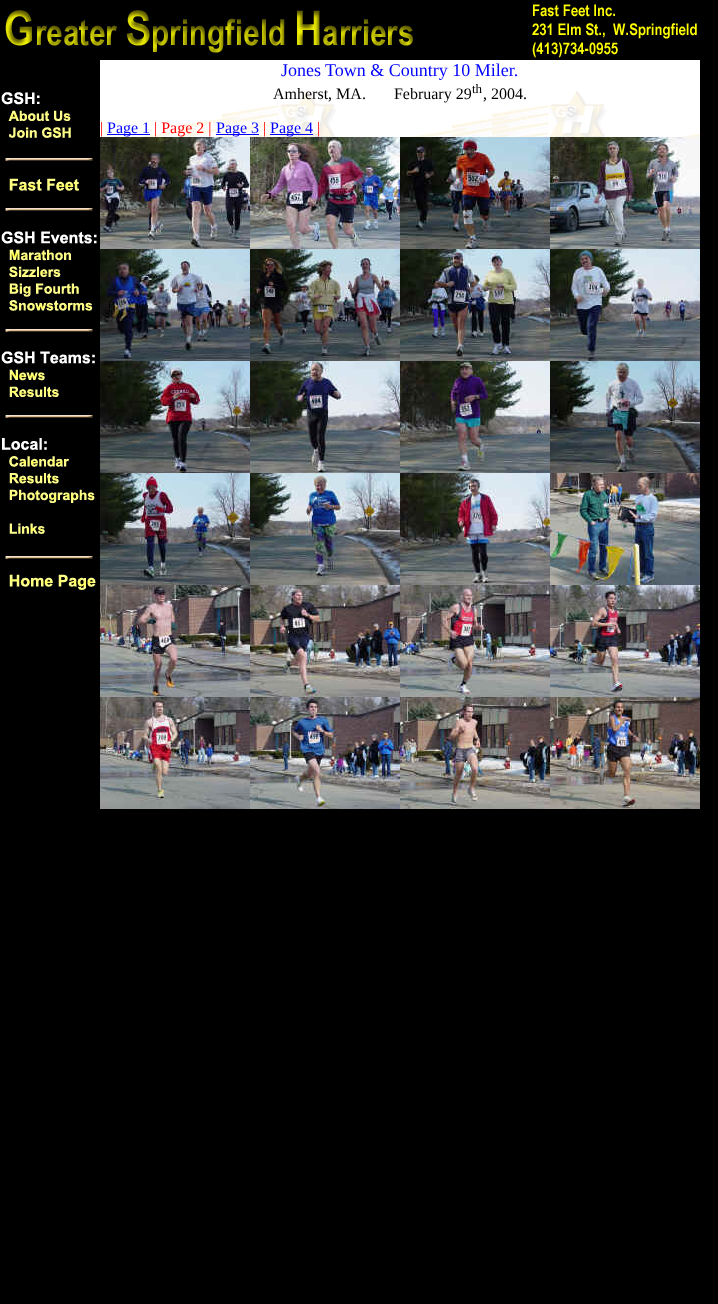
(async () => {
    const canvas = document.querySelector("canvas");
    canvas.width = 718;
    canvas.height = 1304;
    const context = canvas.getContext("2d");
    context.miterLimit = 4;
    context.fontKerning = "normal";
    function write(s, x, y, font, color) {
        context.font = font;
        context.fillStyle = color;
        context.fillText(s, x, y);
    }
    function block(x, y, w, h, color) {
        context.fillStyle = color;
        context.fillRect(x, y, w, h);
    }
    async function photo(src, x, y, w, h) {
        const img = new Image();
        img.src = src;
        await img.decode();
        context.drawImage(img, x, y, w, h);
    }

    block(0, 0, 718, 1304, "rgb(0, 0, 0)");
    await photo("media/1.png", 5, 4, 692, 54);
    await photo("media/2.png", 1, 92, 96, 498);
    block(100, 60, 600, 77, "rgb(255, 255, 255)");
    await photo("media/3.png", 138, 91, 562, 46);
    write("Jones", 281, 76, "18px Liberation Serif", "rgb(0, 0, 255)");
    write("Town & Country 10 Miler.", 325, 76, "18px Liberation Serif", "rgb(0, 0, 255)");
    write("Amherst, MA.       February 29", 273, 99, "16px Liberation Serif", "rgb(0, 0, 0)");
    write("th", 472, 93, "13px Liberation Serif", "rgb(0, 0, 0)");
    write(", 2004.", 483, 99, "16px Liberation Serif", "rgb(0, 0, 0)");
    write("|", 100, 133, "16px Liberation Serif", "rgb(255, 0, 0)");
    block(107, 134, 43, 1, "rgb(0, 0, 255)");
    write("Page 1", 107, 133, "16px Liberation Serif", "rgb(0, 0, 255)");
    write("| Page 2 |", 154, 133, "16px Liberation Serif", "rgb(255, 0, 0)");
    block(216, 134, 43, 1, "rgb(0, 0, 255)");
    write("Page 3", 216, 133, "16px Liberation Serif", "rgb(0, 0, 255)");
    write("|", 263, 133, "16px Liberation Serif", "rgb(255, 0, 0)");
    block(270, 134, 43, 1, "rgb(0, 0, 255)");
    write("Page 4", 270, 133, "16px Liberation Serif", "rgb(0, 0, 255)");
    write("|", 317, 133, "16px Liberation Serif", "rgb(255, 0, 0)");
    await photo("media/4.png", 100, 137, 150, 112);
    await photo("media/5.png", 250, 137, 150, 112);
    await photo("media/6.png", 400, 137, 150, 112);
    await photo("media/7.png", 550, 137, 150, 112);
    await photo("media/8.png", 100, 249, 150, 112);
    await photo("media/9.png", 250, 249, 150, 112);
    await photo("media/10.png", 400, 249, 150, 112);
    await photo("media/11.png", 550, 249, 150, 112);
    await photo("media/12.png", 100, 361, 150, 112);
    await photo("media/13.png", 250, 361, 150, 112);
    await photo("media/14.png", 400, 361, 150, 112);
    await photo("media/15.png", 550, 361, 150, 112);
    await photo("media/16.png", 100, 473, 150, 112);
    await photo("media/17.png", 250, 473, 150, 112);
    await photo("media/18.png", 400, 473, 150, 112);
    await photo("media/19.png", 550, 473, 150, 112);
    await photo("media/20.png", 100, 585, 150, 112);
    await photo("media/21.png", 250, 585, 150, 112);
    await photo("media/22.png", 400, 585, 150, 112);
    await photo("media/23.png", 550, 585, 150, 112);
    await photo("media/24.png", 100, 697, 150, 112);
    await photo("media/25.png", 250, 697, 150, 112);
    await photo("media/26.png", 400, 697, 150, 112);
    await photo("media/27.png", 550, 697, 150, 112);
})();
